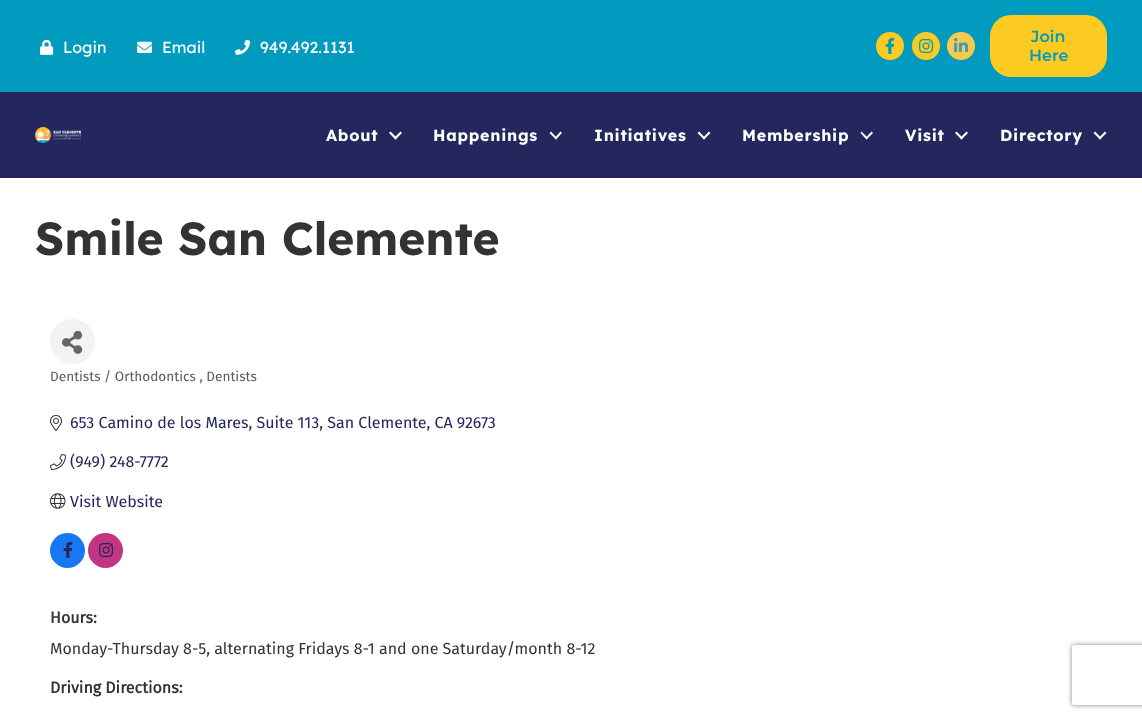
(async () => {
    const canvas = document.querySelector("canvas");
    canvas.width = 1142;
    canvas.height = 719;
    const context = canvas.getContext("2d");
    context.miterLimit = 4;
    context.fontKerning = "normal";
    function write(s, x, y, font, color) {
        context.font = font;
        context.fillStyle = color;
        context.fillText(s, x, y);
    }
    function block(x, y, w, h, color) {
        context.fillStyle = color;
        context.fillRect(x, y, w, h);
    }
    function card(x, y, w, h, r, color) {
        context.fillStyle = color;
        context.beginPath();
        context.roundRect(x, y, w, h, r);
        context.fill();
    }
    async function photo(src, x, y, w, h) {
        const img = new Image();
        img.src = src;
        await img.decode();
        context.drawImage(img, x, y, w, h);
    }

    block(0, 0, 1142, 719, "rgb(0, 155, 191)");
    await photo("media/1.png", 40, 39, 14, 16);
    write("Login", 63, 53, "16px Lexend Deca", "rgb(255, 255, 255)");
    await photo("media/2.png", 137, 41, 15, 12);
    write("Email", 162, 53, "16px Lexend Deca", "rgb(255, 255, 255)");
    await photo("media/3.png", 235, 39, 15, 16);
    write("949.492.1131", 260, 53, "16px Lexend Deca", "rgb(255, 255, 255)");
    context.fillStyle = "rgb(253, 202, 33)";
    context.beginPath();
    context.arc(890, 46, 14, 0, Math.PI * 2);
    context.fill();
    await photo("media/4.png", 885, 38, 10, 16);
    context.beginPath();
    context.arc(926, 46, 14, 0, Math.PI * 2);
    context.fill();
    await photo("media/5.png", 919, 39, 15, 14);
    context.fillStyle = "rgb(246, 202, 77)";
    context.beginPath();
    context.arc(961, 46, 14, 0, Math.PI * 2);
    context.fill();
    await photo("media/6.png", 954, 38, 14, 14);
    card(990, 15, 117, 62, 21, "rgb(253, 202, 33)");
    write("Join", 1031, 42, "100 16px Montserrat", "rgb(0, 155, 191)");
    write("Here", 1029, 61, "100 16px Montserrat", "rgb(0, 155, 191)");
    block(0, 92, 1142, 86, "rgb(35, 39, 94)");
    await photo("media/7.png", 35, 127, 46, 16);
    context.letterSpacing = "0.75px";
    write("About", 326, 141, "bold 16px Lexend Deca", "rgb(255, 255, 255)");
    context.beginPath();
    context.moveTo(400.5, 131.5);
    context.lineTo(402, 133);
    context.lineTo(395.5, 139.5);
    context.lineTo(394, 138);
    context.closePath();
    context.fill();
    context.beginPath();
    context.moveTo(390.5, 131.5);
    context.lineTo(397, 138);
    context.lineTo(395.5, 139.5);
    context.lineTo(389, 133);
    context.closePath();
    context.fill();
    write("Happenings", 433, 141, "bold 16px Lexend Deca", "rgb(255, 255, 255)");
    context.beginPath();
    context.moveTo(560.5, 131.5);
    context.lineTo(562, 133);
    context.lineTo(556, 139.5);
    context.lineTo(554.5, 138);
    context.closePath();
    context.fill();
    context.beginPath();
    context.moveTo(551, 131.5);
    context.lineTo(557, 138);
    context.lineTo(556, 139.5);
    context.lineTo(549.5, 133);
    context.closePath();
    context.fill();
    write("Initiatives", 594, 141, "bold 16px Lexend Deca", "rgb(255, 255, 255)");
    context.beginPath();
    context.moveTo(709, 131.5);
    context.lineTo(710.5, 133);
    context.lineTo(704, 139.5);
    context.lineTo(702.5, 138);
    context.closePath();
    context.fill();
    context.beginPath();
    context.moveTo(699, 131.5);
    context.lineTo(705.5, 138);
    context.lineTo(704, 139.5);
    context.lineTo(697.5, 133);
    context.closePath();
    context.fill();
    write("Membership", 742, 141, "bold 16px Lexend Deca", "rgb(255, 255, 255)");
    context.beginPath();
    context.moveTo(871.5, 131.5);
    context.lineTo(873, 133);
    context.lineTo(866.5, 139.5);
    context.lineTo(865.5, 138);
    context.closePath();
    context.fill();
    context.beginPath();
    context.moveTo(861.5, 131.5);
    context.lineTo(868, 138);
    context.lineTo(866.5, 139.5);
    context.lineTo(860.5, 133);
    context.closePath();
    context.fill();
    write("Visit", 905, 141, "bold 16px Lexend Deca", "rgb(255, 255, 255)");
    context.beginPath();
    context.moveTo(966.5, 131.5);
    context.lineTo(968, 133);
    context.lineTo(961.5, 139.5);
    context.lineTo(960, 138);
    context.closePath();
    context.fill();
    context.beginPath();
    context.moveTo(956.5, 131.5);
    context.lineTo(963, 138);
    context.lineTo(961.5, 139.5);
    context.lineTo(955, 133);
    context.closePath();
    context.fill();
    write("Directory", 1000, 141, "bold 16px Lexend Deca", "rgb(255, 255, 255)");
    context.beginPath();
    context.moveTo(1105, 131.5);
    context.lineTo(1106.5, 133);
    context.lineTo(1100, 139.5);
    context.lineTo(1098.5, 138);
    context.closePath();
    context.fill();
    context.beginPath();
    context.moveTo(1095, 131.5);
    context.lineTo(1101.5, 138);
    context.lineTo(1100, 139.5);
    context.lineTo(1093.5, 133);
    context.closePath();
    context.fill();
    block(0, 178, 1142, 541, "rgb(255, 255, 255)");
    context.letterSpacing = "0px";
    write("Smile San Clemente", 35, 255, "bold 46px Lexend Deca", "rgb(51, 51, 51)");
    context.fillStyle = "rgb(243, 243, 243)";
    context.beginPath();
    context.arc(72.5, 341.5, 22.5, 0, Math.PI * 2);
    context.fill();
    await photo("media/8.png", 62, 330, 21, 24);
    write("Dentists / Orthodontics , Dentists", 50, 381, "13.6px Fira Sans", "rgb(92, 92, 92)");
    await photo("media/9.png", 50, 415, 12, 16);
    write("653 Camino de los Mares, Suite 113, San Clemente, CA 92673", 70, 428, "16px Fira Sans", "rgb(35, 39, 94)");
    await photo("media/10.png", 50, 454, 16, 16);
    write("(949) 248-7772", 70, 467, "16px Fira Sans", "rgb(35, 39, 94)");
    await photo("media/11.png", 50, 493, 16, 16);
    write("Visit Website", 70, 507, "16px Fira Sans", "rgb(35, 39, 94)");
    context.fillStyle = "rgb(24, 119, 242)";
    context.beginPath();
    context.arc(67.5, 550.5, 17.5, 0, Math.PI * 2);
    context.fill();
    await photo("media/12.png", 63, 542, 10, 16);
    context.fillStyle = "rgb(193, 53, 132)";
    context.beginPath();
    context.arc(105.5, 550.5, 17.5, 0, Math.PI * 2);
    context.fill();
    await photo("media/13.png", 99, 543, 15, 14);
    write("Hours:", 50, 623, "bold 16px Fira Sans", "rgb(51, 51, 51)");
    write("Monday-Thursday 8-5, alternating Fridays 8-1 and one Saturday/month 8-12", 50, 654, "16px Fira Sans", "rgb(51, 51, 51)");
    write("Driving Directions:", 50, 693, "bold 16px Fira Sans", "rgb(51, 51, 51)");
    context.save();
    context.beginPath();
    context.moveTo(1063, 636);
    context.lineTo(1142, 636);
    context.lineTo(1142, 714);
    context.lineTo(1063, 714);
    context.closePath();
    context.moveTo(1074, 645);
    context.lineTo(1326, 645);
    context.bezierCurveTo(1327, 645, 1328, 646, 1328, 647);
    context.lineTo(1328, 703);
    context.bezierCurveTo(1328, 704, 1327, 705, 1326, 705);
    context.lineTo(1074, 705);
    context.bezierCurveTo(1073, 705, 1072, 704, 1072, 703);
    context.lineTo(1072, 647);
    context.bezierCurveTo(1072, 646, 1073, 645, 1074, 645);
    context.closePath();
    context.clip("evenodd");
    context.fillStyle = "rgb(128, 128, 128)";
    context.filter = "blur(2.5px)";
    context.beginPath();
    context.roundRect(1072, 645, 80, 60, 2);
    context.fill();
    context.filter = "none";
    context.restore();
})();
